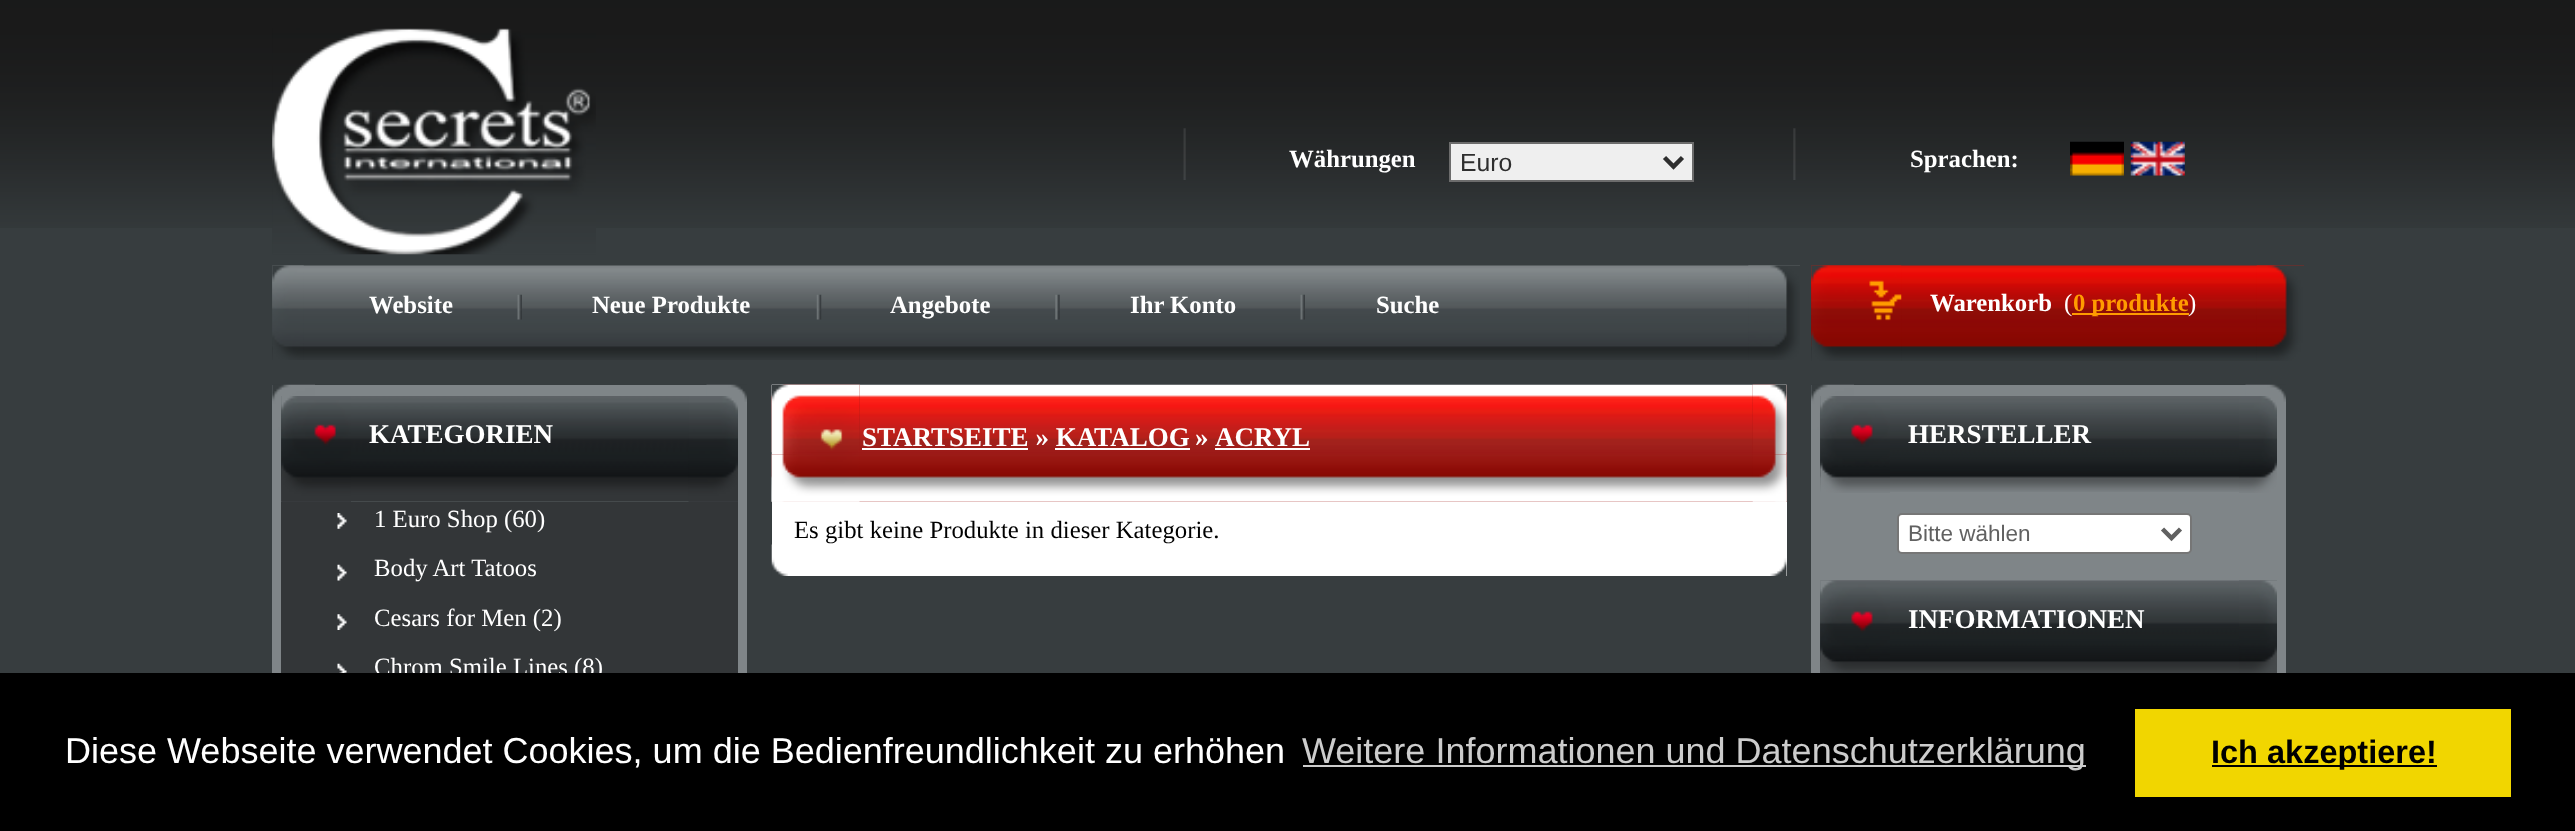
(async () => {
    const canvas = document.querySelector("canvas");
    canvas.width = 2575;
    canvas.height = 831;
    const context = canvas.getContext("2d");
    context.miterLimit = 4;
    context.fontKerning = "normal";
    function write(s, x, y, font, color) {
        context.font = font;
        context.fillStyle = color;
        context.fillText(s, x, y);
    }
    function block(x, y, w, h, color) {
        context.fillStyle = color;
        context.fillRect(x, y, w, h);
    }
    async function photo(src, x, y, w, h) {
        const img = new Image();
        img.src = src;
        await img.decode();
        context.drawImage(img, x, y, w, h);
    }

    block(0, 0, 2575, 831, "rgb(55, 61, 63)");
    await photo("media/1.png", 0, 0, 2575, 228);
    await photo("media/2.png", 1183, 128, 3, 52);
    await photo("media/3.png", 272, 28, 324, 227);
    await photo("media/4.png", 1793, 128, 3, 52);
    write("Währungen", 1289, 167, "bold 24.75px Liberation Serif", "rgb(255, 255, 255)");
    context.fillStyle = "rgb(239, 239, 239)";
    context.beginPath();
    context.rect(1450, 143, 243, 38);
    context.fill();
    context.strokeStyle = "rgb(108, 108, 108)";
    context.lineWidth = 2;
    context.stroke();
    context.beginPath();
    context.moveTo(1664.5, 157.5);
    context.lineTo(1673.5, 166.5);
    context.lineTo(1682.5, 157.5);
    context.strokeStyle = "rgb(46, 46, 46)";
    context.lineWidth = 4.5;
    context.stroke();
    write("Euro", 1460, 171, "24.75px Liberation Sans", "rgb(46, 46, 46)");
    write("Sprachen:", 1910, 167, "bold 24.75px Liberation Serif", "rgb(255, 255, 255)");
    await photo("media/5.png", 2070, 141, 54, 35);
    await photo("media/6.png", 2130, 141, 55, 35);
    await photo("media/7.png", 272, 265, 1528, 95);
    await photo("media/8.png", 272, 265, 32, 95);
    await photo("media/9.png", 1748, 265, 52, 95);
    await photo("media/10.png", 517, 294, 5, 26);
    write("Website", 369, 313, "bold 24.75px Liberation Serif", "rgb(255, 255, 255)");
    await photo("media/11.png", 816, 294, 6, 26);
    write("Neue Produkte", 592, 313, "bold 24.75px Liberation Serif", "rgb(255, 255, 255)");
    await photo("media/12.png", 1055, 294, 5, 26);
    write("Angebote", 890, 313, "bold 24.75px Liberation Serif", "rgb(255, 255, 255)");
    await photo("media/10.png", 1300, 294, 5, 26);
    write("Ihr Konto", 1130, 313, "bold 24.75px Liberation Serif", "rgb(255, 255, 255)");
    write("Suche", 1376, 313, "bold 24.75px Liberation Serif", "rgb(255, 255, 255)");
    await photo("media/13.png", 1811, 265, 493, 96);
    await photo("media/14.png", 1811, 265, 91, 96);
    await photo("media/15.png", 2256, 265, 48, 96);
    write("Warenkorb", 1930, 311, "bold 24.75px Liberation Serif", "rgb(255, 255, 255)");
    write("(", 2064, 311, "24.75px Liberation Serif", "rgb(255, 255, 255)");
    block(2072, 313, 117, 2, "rgb(255, 156, 0)");
    write("0 produkte", 2073, 311, "bold 24.75px Liberation Serif", "rgb(255, 156, 0)");
    write(")", 2188, 311, "24.75px Liberation Serif", "rgb(255, 255, 255)");
    block(272, 385, 475, 288, "rgb(127, 133, 136)");
    await photo("media/16.png", 272, 384, 43, 46);
    await photo("media/17.png", 706, 384, 41, 18);
    await photo("media/18.png", 281, 396, 457, 106);
    await photo("media/19.png", 281, 396, 70, 106);
    await photo("media/20.png", 688, 396, 50, 106);
    write("KATEGORIEN", 369, 443, "bold 27px Liberation Serif", "rgb(255, 255, 255)");
    block(281, 502, 457, 171, "rgb(51, 54, 56)");
    await photo("media/21.png", 337, 513, 10, 16);
    write("1 Euro Shop (60)", 374, 527, "24.75px Liberation Serif", "rgb(255, 255, 255)");
    await photo("media/22.png", 337, 564, 10, 17);
    write("Body Art Tatoos", 374, 576, "24.75px Liberation Serif", "rgb(255, 255, 255)");
    await photo("media/23.png", 337, 614, 10, 16);
    write("Cesars for Men (2)", 374, 626, "24.75px Liberation Serif", "rgb(255, 255, 255)");
    await photo("media/24.png", 337, 663, 10, 10);
    write("Chrom Smile Lines (8)", 374, 675, "24.75px Liberation Serif", "rgb(255, 255, 255)");
    block(772, 385, 1015, 117, "rgb(156, 26, 23)");
    await photo("media/25.png", 771, 384, 1016, 69);
    await photo("media/26.png", 771, 384, 89, 118);
    await photo("media/27.png", 1752, 384, 35, 118);
    await photo("media/28.png", 771, 454, 1016, 48);
    await photo("media/29.png", 1752, 384, 35, 69);
    await photo("media/30.png", 771, 384, 89, 69);
    await photo("media/31.png", 771, 454, 89, 48);
    await photo("media/32.png", 1752, 454, 35, 48);
    write("STARTSEITE » KATALOG", 862, 446, "bold 27px Liberation Serif", "rgb(255, 255, 255)");
    block(862, 448, 166, 2, "rgb(255, 255, 255)");
    write("»", 1195, 446, "bold 27px Liberation Serif", "rgb(255, 255, 255)");
    write("ACRYL", 1215, 446, "bold 27px Liberation Serif", "rgb(255, 255, 255)");
    block(1215, 448, 95, 2, "rgb(255, 255, 255)");
    block(1055, 448, 135, 2, "rgb(255, 255, 255)");
    block(772, 502, 1015, 74, "rgb(255, 255, 255)");
    await photo("media/33.png", 771, 544, 17, 32);
    await photo("media/34.png", 1770, 558, 17, 18);
    write("Es gibt keine Produkte in dieser Kategorie.", 794, 538, "24.75px Liberation Serif", "rgb(0, 0, 0)");
    block(1811, 385, 475, 288, "rgb(127, 133, 136)");
    await photo("media/16.png", 1811, 384, 43, 46);
    await photo("media/17.png", 2245, 384, 41, 18);
    await photo("media/35.png", 1820, 396, 419, 96);
    await photo("media/36.png", 1820, 396, 70, 97);
    await photo("media/37.png", 2239, 396, 38, 97);
    write("HERSTELLER", 1908, 443, "bold 27px Liberation Serif", "rgb(255, 255, 255)");
    context.beginPath();
    context.roundRect(1898, 514, 293, 39, 4);
    context.fill();
    context.strokeStyle = "rgb(118, 118, 118)";
    context.lineWidth = 2;
    context.stroke();
    context.beginPath();
    context.moveTo(2162.5, 529);
    context.lineTo(2171.5, 538);
    context.lineTo(2180.5, 529);
    context.strokeStyle = "rgb(97, 97, 97)";
    context.lineWidth = 4.5;
    context.stroke();
    write("Bitte wählen", 1908, 541, "22.5px Liberation Sans", "rgb(97, 97, 97)");
    await photo("media/38.png", 1820, 580, 457, 93);
    await photo("media/39.png", 1820, 580, 70, 93);
    await photo("media/40.png", 2239, 580, 38, 93);
    write("INFORMATIONEN", 1908, 628, "bold 27px Liberation Serif", "rgb(255, 255, 255)");
    block(0, 673, 2575, 158, "rgb(0, 0, 0)");
    write("Diese Webseite verwendet Cookies, um die Bedienfreundlichkeit zu erhöhen", 65, 763, "36px Liberation Sans", "rgb(255, 255, 255)");
    block(1303, 765, 783, 2, "rgb(204, 204, 204)");
    write("Weitere Informationen und Datenschutzerklärung", 1302, 763, "36px Liberation Sans", "rgb(204, 204, 204)");
    block(2135, 709, 376, 88, "rgb(241, 214, 0)");
    block(2212, 765, 225, 2, "rgb(0, 0, 0)");
    write("Ich akzeptiere!", 2211, 763, "bold 32.5px Liberation Sans", "rgb(0, 0, 0)");
})();
